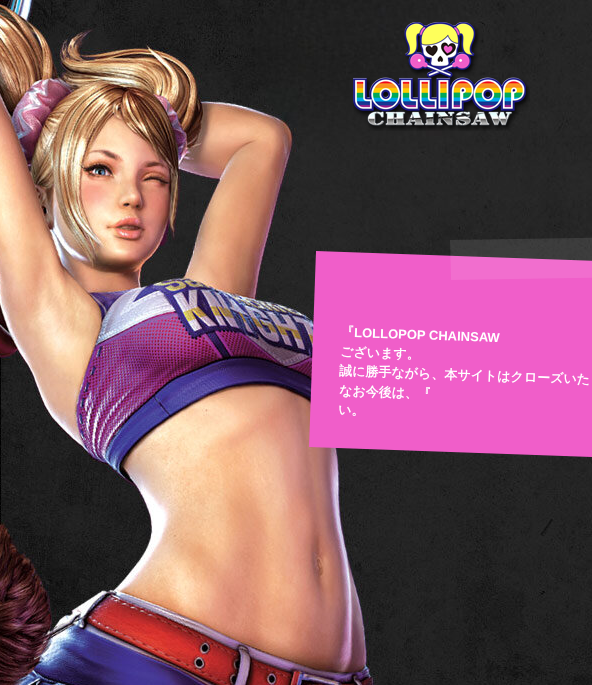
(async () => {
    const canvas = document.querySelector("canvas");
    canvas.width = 592;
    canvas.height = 685;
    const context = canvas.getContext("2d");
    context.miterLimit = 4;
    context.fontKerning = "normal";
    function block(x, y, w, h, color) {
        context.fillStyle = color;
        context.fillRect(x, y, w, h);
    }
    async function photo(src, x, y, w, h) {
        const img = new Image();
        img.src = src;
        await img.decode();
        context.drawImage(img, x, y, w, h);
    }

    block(0, 0, 592, 685, "rgb(255, 255, 255)");
    await photo("media/1.png", 0, 0, 592, 685);
    await photo("media/2.png", 353, 22, 177, 109);
    context.fillStyle = "rgb(240, 94, 201)";
    context.beginPath();
    context.moveTo(316, 251);
    context.lineTo(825, 269);
    context.lineTo(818, 465);
    context.lineTo(309, 447);
    context.closePath();
    context.fill();
    context.fillStyle = "rgba(255, 255, 255, 0.1)";
    context.beginPath();
    context.moveTo(450, 240);
    context.lineTo(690, 236);
    context.lineTo(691, 276);
    context.lineTo(451, 280);
    context.closePath();
    context.fill();
    context.font = "bold 13px WenQuanYi Zen Hei";
    context.fillStyle = "rgb(255, 255, 255)";
    context.save();
    context.translate(341, 336);
    context.rotate(2 * Math.PI / 180);
    context.fillText("『", 0, 0);
    context.restore();
    context.font = "bold 13px Liberation Sans";
    context.save();
    context.translate(354, 337);
    context.rotate(2 * Math.PI / 180);
    context.fillText("LOLLOPOP CHAINSAW", 0, 0);
    context.restore();
    context.font = "bold 13px WenQuanYi Zen Hei";
    context.save();
    context.translate(340, 356);
    context.rotate(2 * Math.PI / 180);
    context.fillText("ございます。", 0, 0);
    context.restore();
    context.save();
    context.translate(339, 375);
    context.rotate(2 * Math.PI / 180);
    context.fillText("誠に勝手ながら、本サイトはクローズいたしました。", 0, 0);
    context.restore();
    context.save();
    context.translate(339, 395);
    context.rotate(2 * Math.PI / 180);
    context.fillText("なお今後は、『", 0, 0);
    context.restore();
    context.save();
    context.translate(338, 414);
    context.rotate(2 * Math.PI / 180);
    context.fillText("い。", 0, 0);
    context.restore();
})();
